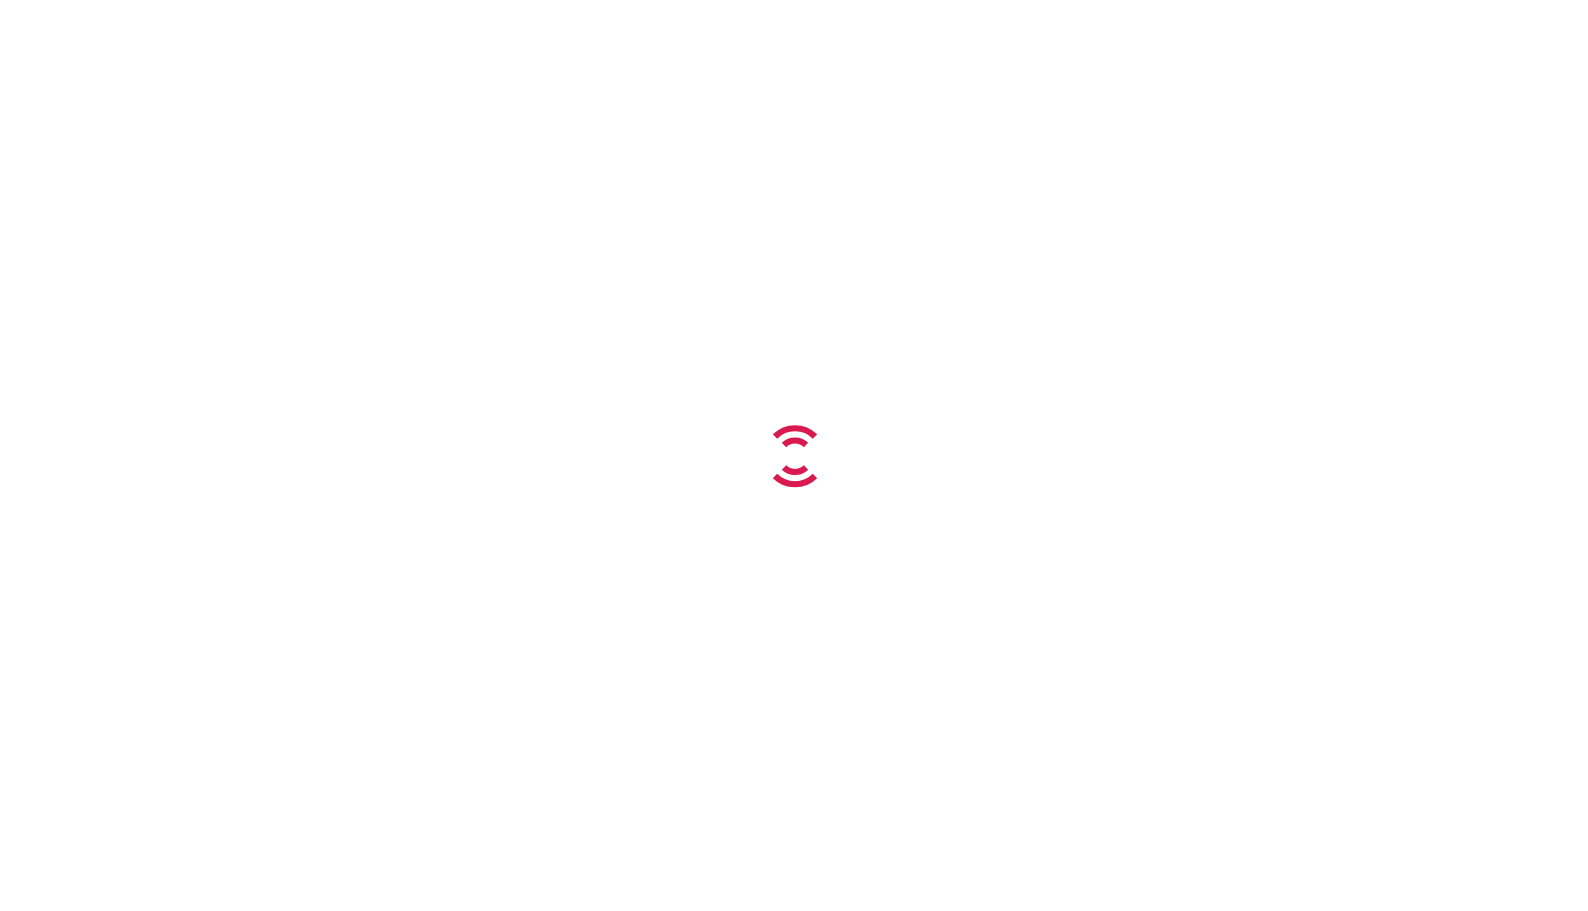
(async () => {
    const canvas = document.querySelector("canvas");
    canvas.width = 1588;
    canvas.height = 911;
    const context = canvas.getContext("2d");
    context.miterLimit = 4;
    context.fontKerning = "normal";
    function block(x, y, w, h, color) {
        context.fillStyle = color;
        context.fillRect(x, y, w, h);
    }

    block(0, 0, 1588, 911, "rgb(255, 255, 255)");
    context.beginPath();
    context.moveTo(775, 436.5);
    context.bezierCurveTo(786, 425.5, 804, 425.5, 815, 436.5);
    context.moveTo(815, 476);
    context.bezierCurveTo(804, 487, 786, 487, 775, 476);
    context.moveTo(784, 445);
    context.bezierCurveTo(790, 439, 800, 439, 806, 445);
    context.moveTo(806, 467.5);
    context.bezierCurveTo(800, 473.5, 790, 473.5, 784, 467.5);
    context.strokeStyle = "rgb(217, 26, 80)";
    context.lineWidth = 6.2;
    context.stroke();
})();
